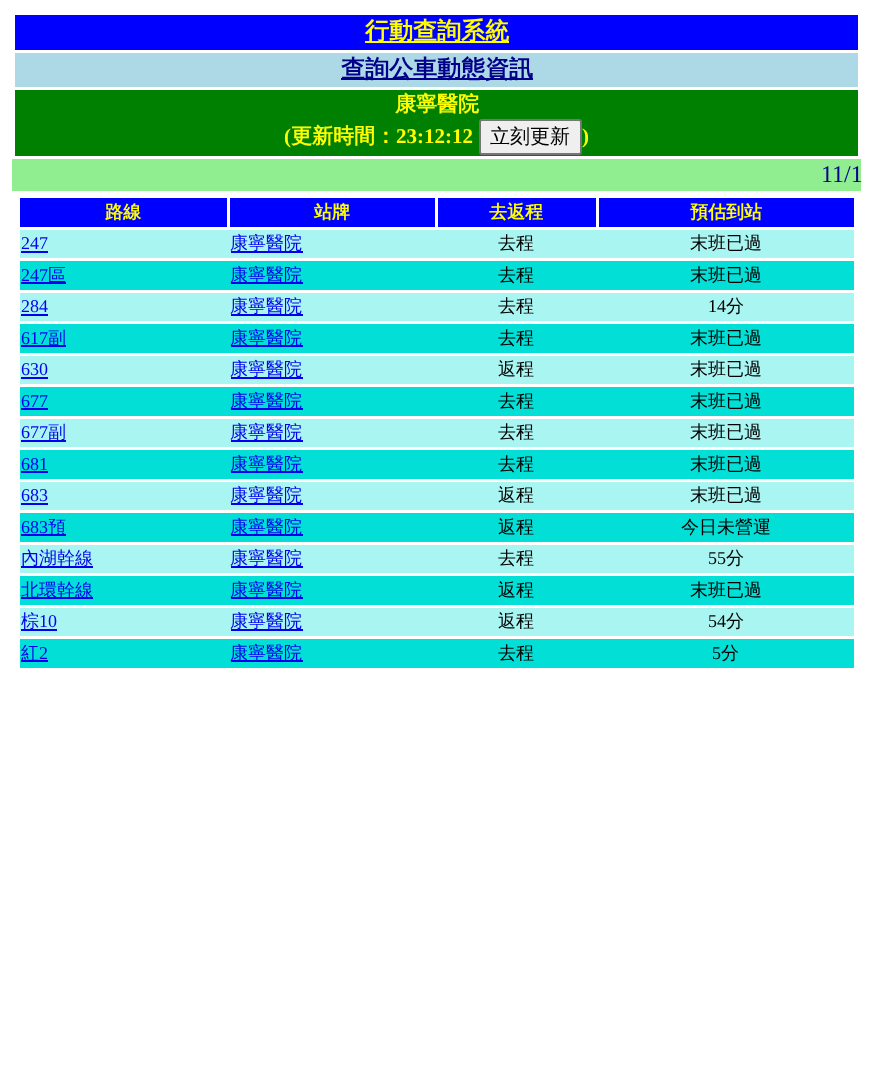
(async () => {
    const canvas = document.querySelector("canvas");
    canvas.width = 872;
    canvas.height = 1089;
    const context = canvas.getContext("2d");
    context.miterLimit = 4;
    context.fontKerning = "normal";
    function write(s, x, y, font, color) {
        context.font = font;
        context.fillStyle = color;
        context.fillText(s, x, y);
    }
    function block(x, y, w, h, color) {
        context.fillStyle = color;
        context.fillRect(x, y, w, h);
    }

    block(0, 0, 872, 1089, "rgb(255, 255, 255)");
    block(15, 15, 843, 35, "rgb(0, 0, 255)");
    block(365, 41, 144, 2, "rgb(255, 255, 0)");
    write("行動查詢系統", 365, 39, "bold 24px WenQuanYi Zen Hei", "rgb(255, 255, 0)");
    block(15, 53, 843, 34, "rgb(173, 216, 230)");
    block(341, 78, 192, 2, "rgb(0, 0, 139)");
    write("查詢公車動態資訊", 341, 77, "bold 24px WenQuanYi Zen Hei", "rgb(0, 0, 139)");
    block(15, 90, 843, 66, "rgb(0, 128, 0)");
    write("康寧醫院", 395, 111, "bold 21px WenQuanYi Zen Hei", "rgb(255, 255, 0)");
    write("(", 284, 143, "bold 21px Liberation Serif", "rgb(255, 255, 0)");
    write("更新時間：", 291, 143, "bold 21px WenQuanYi Zen Hei", "rgb(255, 255, 0)");
    write("23:12:12", 396, 143, "bold 21px Liberation Serif", "rgb(255, 255, 0)");
    context.fillStyle = "rgb(239, 239, 239)";
    context.beginPath();
    context.roundRect(480, 120, 101, 34, 2);
    context.fill();
    context.strokeStyle = "rgb(118, 118, 118)";
    context.lineWidth = 2;
    context.stroke();
    write("立刻更新", 490, 143, "500 20px WenQuanYi Zen Hei", "rgb(0, 0, 0)");
    write(")", 582, 143, "bold 21px Liberation Serif", "rgb(255, 255, 0)");
    block(12, 159, 849, 32, "rgb(144, 238, 144)");
    write("11/1", 821, 182, "24px Liberation Serif", "rgb(0, 0, 139)");
    block(20, 198, 207, 29, "rgb(0, 0, 255)");
    write("路線", 105, 218, "bold 18px WenQuanYi Zen Hei", "rgb(255, 255, 0)");
    block(230, 198, 205, 29, "rgb(0, 0, 255)");
    write("站牌", 314, 218, "bold 18px WenQuanYi Zen Hei", "rgb(255, 255, 0)");
    block(438, 198, 158, 29, "rgb(0, 0, 255)");
    write("去返程", 489, 218, "bold 18px WenQuanYi Zen Hei", "rgb(255, 255, 0)");
    block(599, 198, 255, 29, "rgb(0, 0, 255)");
    write("預估到站", 690, 218, "bold 18px WenQuanYi Zen Hei", "rgb(255, 255, 0)");
    block(20, 230, 834, 28, "rgb(169, 245, 242)");
    write("247", 21, 249, "18px Liberation Serif", "rgb(0, 0, 238)");
    block(21, 251, 27, 2, "rgb(0, 0, 238)");
    block(231, 251, 72, 2, "rgb(0, 0, 238)");
    write("康寧醫院", 230, 249, "500 18px WenQuanYi Zen Hei", "rgb(0, 0, 238)");
    write("去程", 498, 249, "500 18px WenQuanYi Zen Hei", "rgb(0, 0, 0)");
    write("末班已過", 690, 249, "500 18px WenQuanYi Zen Hei", "rgb(0, 0, 0)");
    block(20, 261, 834, 29, "rgb(1, 223, 215)");
    write("247", 21, 281, "18px Liberation Serif", "rgb(0, 0, 238)");
    block(21, 282, 45, 2, "rgb(0, 0, 238)");
    write("區", 48, 281, "500 18px WenQuanYi Zen Hei", "rgb(0, 0, 238)");
    block(231, 282, 72, 2, "rgb(0, 0, 238)");
    write("康寧醫院", 230, 281, "500 18px WenQuanYi Zen Hei", "rgb(0, 0, 238)");
    write("去程", 498, 281, "500 18px WenQuanYi Zen Hei", "rgb(0, 0, 0)");
    write("末班已過", 690, 281, "500 18px WenQuanYi Zen Hei", "rgb(0, 0, 0)");
    block(20, 293, 834, 28, "rgb(169, 245, 242)");
    write("284", 21, 312, "18px Liberation Serif", "rgb(0, 0, 238)");
    block(21, 314, 27, 2, "rgb(0, 0, 238)");
    block(231, 314, 72, 2, "rgb(0, 0, 238)");
    write("康寧醫院", 230, 312, "500 18px WenQuanYi Zen Hei", "rgb(0, 0, 238)");
    write("去程", 498, 312, "500 18px WenQuanYi Zen Hei", "rgb(0, 0, 0)");
    write("14", 708, 312, "18px Liberation Serif", "rgb(0, 0, 0)");
    write("分", 726, 312, "500 18px WenQuanYi Zen Hei", "rgb(0, 0, 0)");
    block(20, 324, 834, 29, "rgb(1, 223, 215)");
    write("617", 21, 344, "18px Liberation Serif", "rgb(0, 0, 238)");
    block(21, 345, 45, 2, "rgb(0, 0, 238)");
    write("副", 48, 344, "500 18px WenQuanYi Zen Hei", "rgb(0, 0, 238)");
    block(231, 345, 72, 2, "rgb(0, 0, 238)");
    write("康寧醫院", 230, 344, "500 18px WenQuanYi Zen Hei", "rgb(0, 0, 238)");
    write("去程", 498, 344, "500 18px WenQuanYi Zen Hei", "rgb(0, 0, 0)");
    write("末班已過", 690, 344, "500 18px WenQuanYi Zen Hei", "rgb(0, 0, 0)");
    block(20, 356, 834, 28, "rgb(169, 245, 242)");
    write("630", 21, 375, "18px Liberation Serif", "rgb(0, 0, 238)");
    block(21, 377, 27, 2, "rgb(0, 0, 238)");
    block(231, 377, 72, 2, "rgb(0, 0, 238)");
    write("康寧醫院", 230, 375, "500 18px WenQuanYi Zen Hei", "rgb(0, 0, 238)");
    write("返程", 498, 375, "500 18px WenQuanYi Zen Hei", "rgb(0, 0, 0)");
    write("末班已過", 690, 375, "500 18px WenQuanYi Zen Hei", "rgb(0, 0, 0)");
    block(20, 387, 834, 29, "rgb(1, 223, 215)");
    write("677", 21, 407, "18px Liberation Serif", "rgb(0, 0, 238)");
    block(21, 408, 27, 2, "rgb(0, 0, 238)");
    block(231, 408, 72, 2, "rgb(0, 0, 238)");
    write("康寧醫院", 230, 407, "500 18px WenQuanYi Zen Hei", "rgb(0, 0, 238)");
    write("去程", 498, 407, "500 18px WenQuanYi Zen Hei", "rgb(0, 0, 0)");
    write("末班已過", 690, 407, "500 18px WenQuanYi Zen Hei", "rgb(0, 0, 0)");
    block(20, 419, 834, 28, "rgb(169, 245, 242)");
    write("677", 21, 438, "18px Liberation Serif", "rgb(0, 0, 238)");
    block(21, 440, 45, 2, "rgb(0, 0, 238)");
    write("副", 48, 438, "500 18px WenQuanYi Zen Hei", "rgb(0, 0, 238)");
    block(231, 440, 72, 2, "rgb(0, 0, 238)");
    write("康寧醫院", 230, 438, "500 18px WenQuanYi Zen Hei", "rgb(0, 0, 238)");
    write("去程", 498, 438, "500 18px WenQuanYi Zen Hei", "rgb(0, 0, 0)");
    write("末班已過", 690, 438, "500 18px WenQuanYi Zen Hei", "rgb(0, 0, 0)");
    block(20, 450, 834, 29, "rgb(1, 223, 215)");
    write("681", 21, 470, "18px Liberation Serif", "rgb(0, 0, 238)");
    block(21, 471, 27, 2, "rgb(0, 0, 238)");
    block(231, 471, 72, 2, "rgb(0, 0, 238)");
    write("康寧醫院", 230, 470, "500 18px WenQuanYi Zen Hei", "rgb(0, 0, 238)");
    write("去程", 498, 470, "500 18px WenQuanYi Zen Hei", "rgb(0, 0, 0)");
    write("末班已過", 690, 470, "500 18px WenQuanYi Zen Hei", "rgb(0, 0, 0)");
    block(20, 482, 834, 28, "rgb(169, 245, 242)");
    write("683", 21, 501, "18px Liberation Serif", "rgb(0, 0, 238)");
    block(21, 503, 27, 2, "rgb(0, 0, 238)");
    block(231, 503, 72, 2, "rgb(0, 0, 238)");
    write("康寧醫院", 230, 501, "500 18px WenQuanYi Zen Hei", "rgb(0, 0, 238)");
    write("返程", 498, 501, "500 18px WenQuanYi Zen Hei", "rgb(0, 0, 0)");
    write("末班已過", 690, 501, "500 18px WenQuanYi Zen Hei", "rgb(0, 0, 0)");
    block(20, 513, 834, 29, "rgb(1, 223, 215)");
    write("683", 21, 533, "18px Liberation Serif", "rgb(0, 0, 238)");
    block(21, 534, 45, 2, "rgb(0, 0, 238)");
    write("預", 48, 533, "500 18px WenQuanYi Zen Hei", "rgb(0, 0, 238)");
    block(231, 534, 72, 2, "rgb(0, 0, 238)");
    write("康寧醫院", 230, 533, "500 18px WenQuanYi Zen Hei", "rgb(0, 0, 238)");
    write("返程", 498, 533, "500 18px WenQuanYi Zen Hei", "rgb(0, 0, 0)");
    write("今日未營運", 681, 533, "500 18px WenQuanYi Zen Hei", "rgb(0, 0, 0)");
    block(20, 545, 834, 28, "rgb(169, 245, 242)");
    block(21, 566, 72, 2, "rgb(0, 0, 238)");
    write("內湖幹線", 21, 564, "500 18px WenQuanYi Zen Hei", "rgb(0, 0, 238)");
    block(231, 566, 72, 2, "rgb(0, 0, 238)");
    write("康寧醫院", 230, 564, "500 18px WenQuanYi Zen Hei", "rgb(0, 0, 238)");
    write("去程", 498, 564, "500 18px WenQuanYi Zen Hei", "rgb(0, 0, 0)");
    write("55", 708, 564, "18px Liberation Serif", "rgb(0, 0, 0)");
    write("分", 726, 564, "500 18px WenQuanYi Zen Hei", "rgb(0, 0, 0)");
    block(20, 576, 834, 29, "rgb(1, 223, 215)");
    block(21, 597, 72, 2, "rgb(0, 0, 238)");
    write("北環幹線", 21, 596, "500 18px WenQuanYi Zen Hei", "rgb(0, 0, 238)");
    block(231, 597, 72, 2, "rgb(0, 0, 238)");
    write("康寧醫院", 230, 596, "500 18px WenQuanYi Zen Hei", "rgb(0, 0, 238)");
    write("返程", 498, 596, "500 18px WenQuanYi Zen Hei", "rgb(0, 0, 0)");
    write("末班已過", 690, 596, "500 18px WenQuanYi Zen Hei", "rgb(0, 0, 0)");
    block(20, 608, 834, 28, "rgb(169, 245, 242)");
    block(21, 629, 36, 2, "rgb(0, 0, 238)");
    write("棕", 21, 627, "500 18px WenQuanYi Zen Hei", "rgb(0, 0, 238)");
    write("10", 39, 627, "18px Liberation Serif", "rgb(0, 0, 238)");
    block(231, 629, 72, 2, "rgb(0, 0, 238)");
    write("康寧醫院", 230, 627, "500 18px WenQuanYi Zen Hei", "rgb(0, 0, 238)");
    write("返程", 498, 627, "500 18px WenQuanYi Zen Hei", "rgb(0, 0, 0)");
    write("54", 708, 627, "18px Liberation Serif", "rgb(0, 0, 0)");
    write("分", 726, 627, "500 18px WenQuanYi Zen Hei", "rgb(0, 0, 0)");
    block(20, 639, 834, 29, "rgb(1, 223, 215)");
    block(21, 660, 27, 2, "rgb(0, 0, 238)");
    write("紅", 21, 659, "500 18px WenQuanYi Zen Hei", "rgb(0, 0, 238)");
    write("2", 39, 659, "18px Liberation Serif", "rgb(0, 0, 238)");
    block(231, 660, 72, 2, "rgb(0, 0, 238)");
    write("康寧醫院", 230, 659, "500 18px WenQuanYi Zen Hei", "rgb(0, 0, 238)");
    write("去程", 498, 659, "500 18px WenQuanYi Zen Hei", "rgb(0, 0, 0)");
    write("5", 712, 659, "18px Liberation Serif", "rgb(0, 0, 0)");
    write("分", 721, 659, "500 18px WenQuanYi Zen Hei", "rgb(0, 0, 0)");
})();
